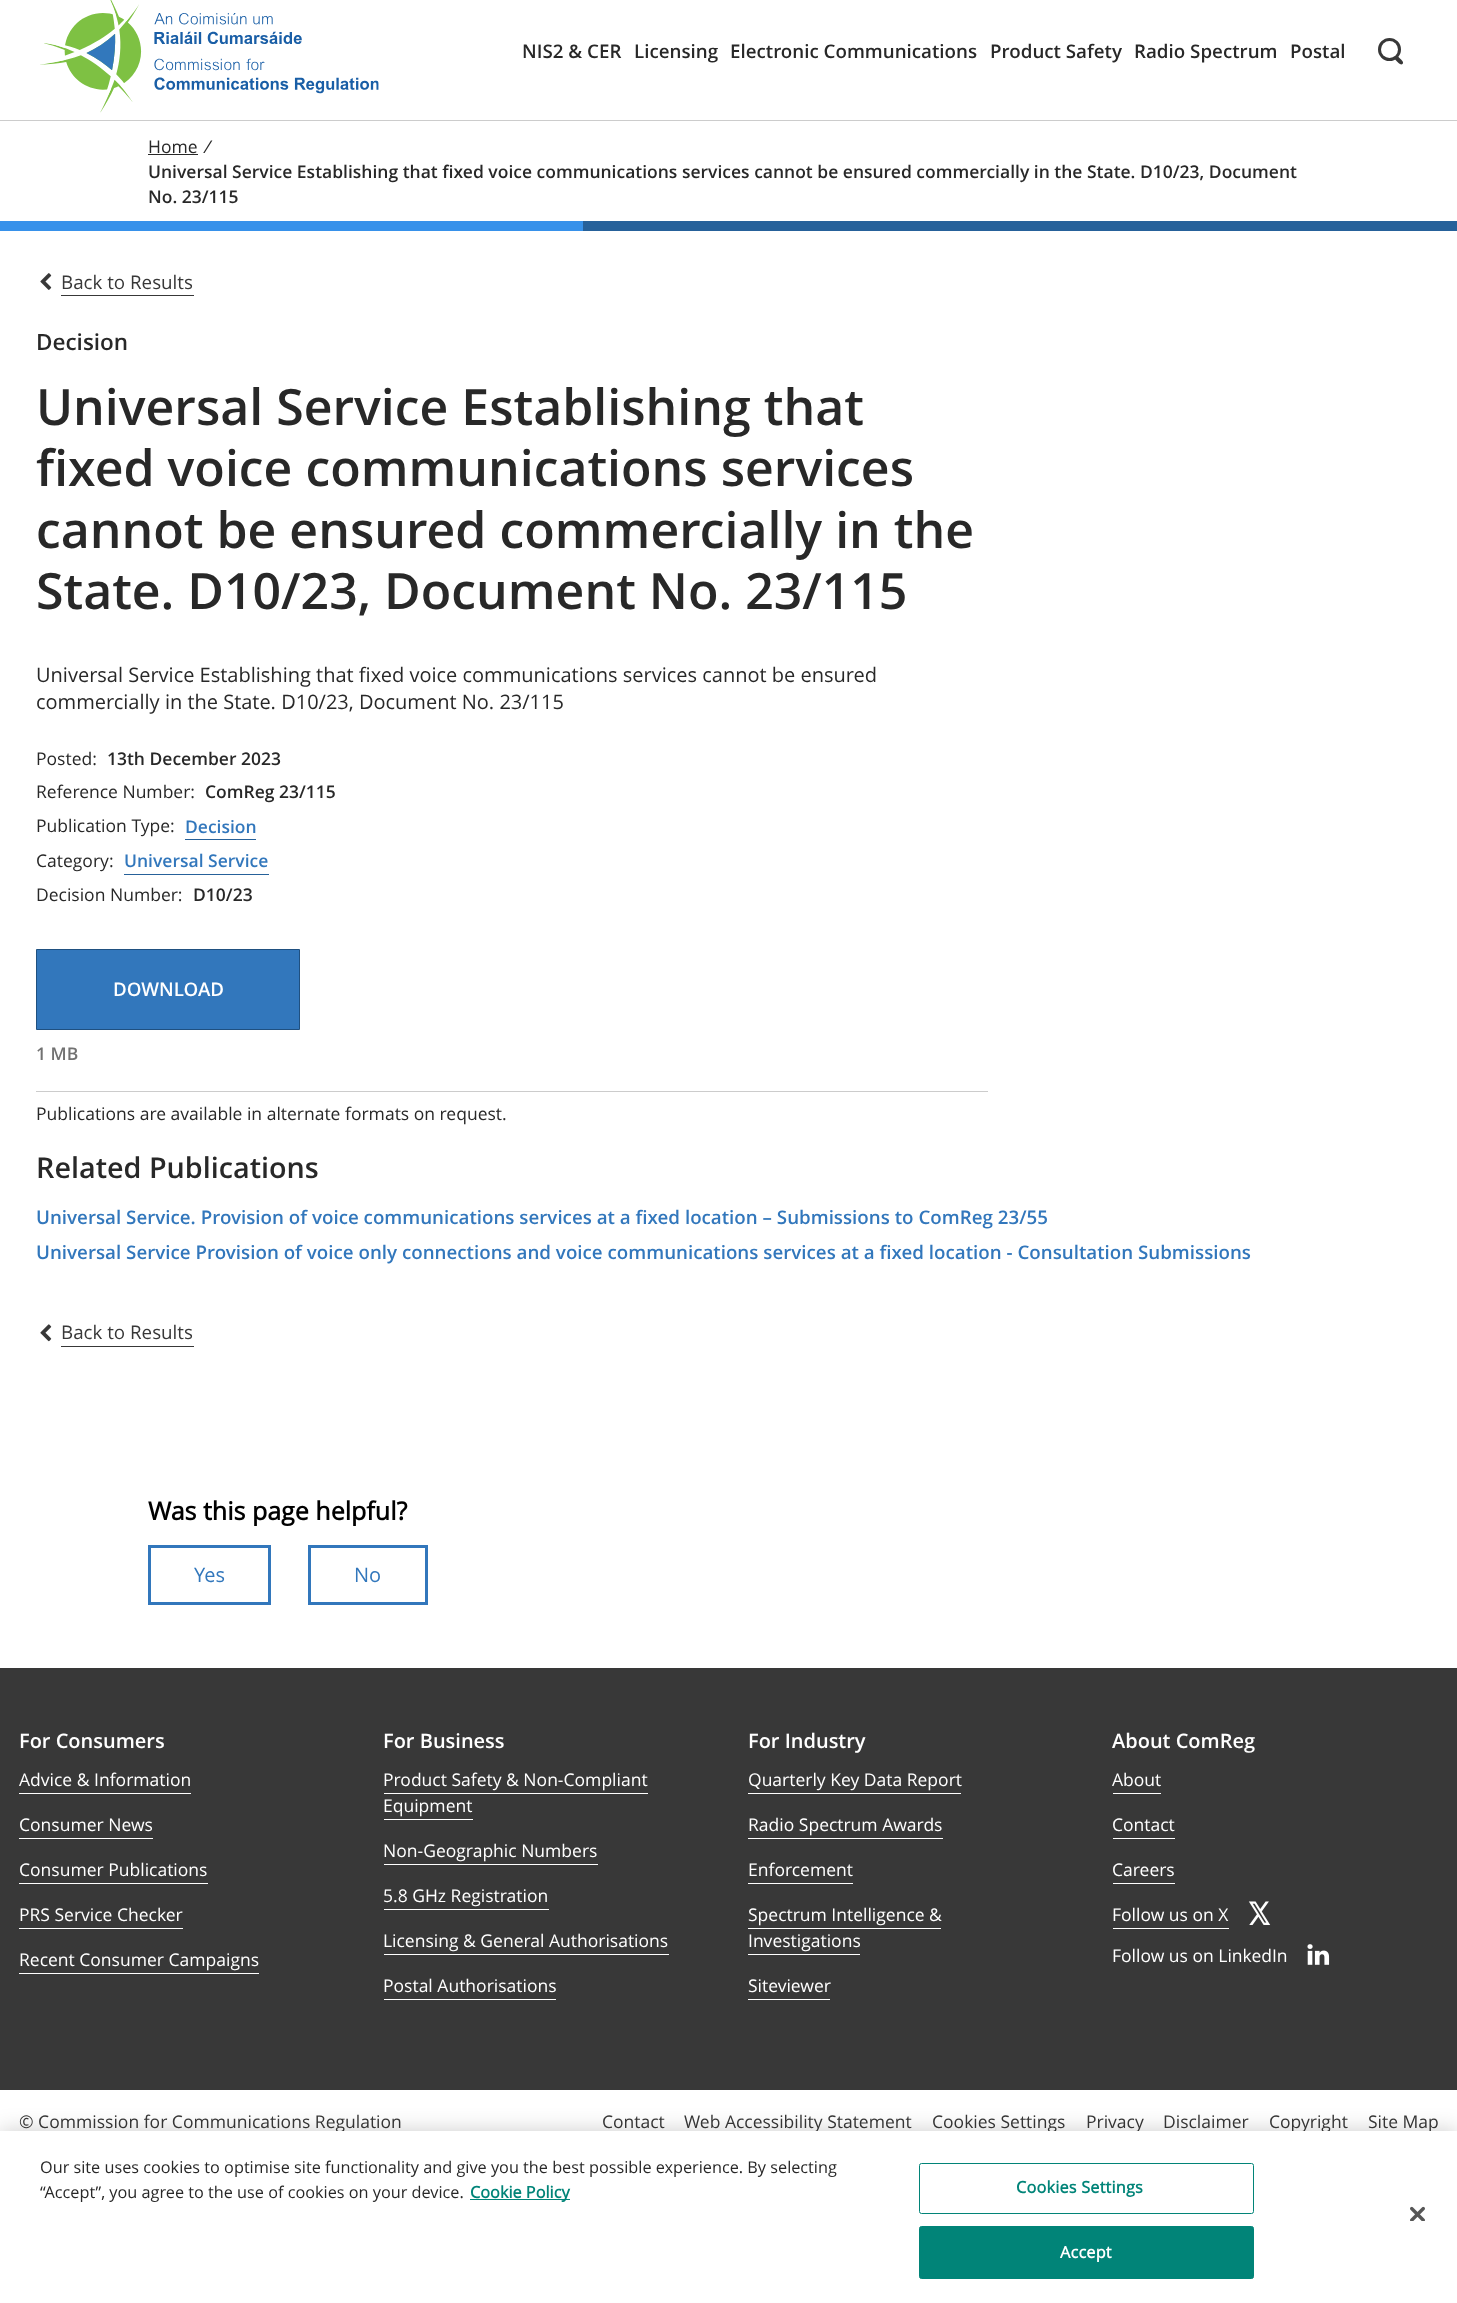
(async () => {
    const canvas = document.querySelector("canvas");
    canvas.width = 1457;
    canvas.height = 2303;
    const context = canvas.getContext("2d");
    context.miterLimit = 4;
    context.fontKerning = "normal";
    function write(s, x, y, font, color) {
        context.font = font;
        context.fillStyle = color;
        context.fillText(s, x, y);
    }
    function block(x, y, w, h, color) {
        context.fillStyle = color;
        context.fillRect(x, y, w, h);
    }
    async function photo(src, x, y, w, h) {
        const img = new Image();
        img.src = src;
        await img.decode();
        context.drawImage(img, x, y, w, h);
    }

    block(0, 0, 1457, 2303, "rgb(255, 255, 255)");
    await photo("media/1.png", 40, 0, 339, 113);
    write("NIS2 & CER", 522, 58, "600 18.75px Open Sans", "rgb(40, 40, 40)");
    write("Licensing", 634, 58, "600 18.75px Open Sans", "rgb(40, 40, 40)");
    write("Electronic Communications", 730, 58, "600 18.75px Open Sans", "rgb(40, 40, 40)");
    write("Product Safety", 990, 58, "600 18.75px Open Sans", "rgb(40, 40, 40)");
    write("Radio Spectrum", 1134, 58, "600 18.75px Open Sans", "rgb(40, 40, 40)");
    write("Postal", 1290, 58, "600 18.75px Open Sans", "rgb(40, 40, 40)");
    context.fillStyle = "rgb(56, 56, 56)";
    context.beginPath();
    context.moveTo(1387.5, 46);
    context.lineTo(1400, 58.5);
    context.bezierCurveTo(1401, 59.5, 1404.5, 62, 1402.5, 64);
    context.bezierCurveTo(1400.5, 65.5, 1398, 62.5, 1397, 61.5);
    context.lineTo(1384.5, 48);
    context.bezierCurveTo(1383.5, 46.5, 1386, 45, 1387.5, 46);
    context.closePath();
    context.fill();
    context.beginPath();
    context.arc(1389.5, 49.5, 9.5, 0, Math.PI * 2);
    context.strokeStyle = "rgb(56, 56, 56)";
    context.lineWidth = 4;
    context.stroke();
    context.fillStyle = "rgb(255, 255, 255)";
    context.beginPath();
    context.arc(1389.5, 49.5, 8.5, 0, Math.PI * 2);
    context.fill();
    block(0, 120, 1457, 1, "rgb(204, 204, 204)");
    write("Home", 148, 153, "17.5px Open Sans", "rgb(40, 40, 40)");
    block(148, 154, 50, 1, "rgb(40, 40, 40)");
    write("/", 203, 153, "italic 17.5px Open Sans", "rgb(40, 40, 40)");
    write("Universal Service Establishing that fixed voice communications services cannot be ensured commercially in the State. D10/23, Document", 148, 178, "600 17.5px Open Sans", "rgb(40, 40, 40)");
    write("No. 23/115", 148, 203, "600 17.5px Open Sans", "rgb(40, 40, 40)");
    block(0, 221, 583, 10, "rgb(55, 145, 234)");
    block(583, 221, 874, 10, "rgb(38, 97, 154)");
    await photo("media/2.png", 40, 273, 12, 17);
    write("Back to Results", 61, 289, "18.75px Open Sans", "rgb(56, 56, 56)");
    block(61, 295, 133, 1, "rgb(56, 56, 56)");
    write("Decision", 36, 350, "600 22.5px Open Sans", "rgb(40, 40, 40)");
    write("Universal Service Establishing that", 36, 425, "600 50px Open Sans", "rgb(40, 40, 40)");
    write("fixed voice communications services", 36, 486, "600 50px Open Sans", "rgb(40, 40, 40)");
    write("cannot be ensured commercially in the", 36, 548, "600 50px Open Sans", "rgb(40, 40, 40)");
    write("State. D10/23, Document No. 23/115", 36, 609, "600 50px Open Sans", "rgb(40, 40, 40)");
    write("Universal Service Establishing that fixed voice communications services cannot be ensured", 36, 682, "20px Open Sans", "rgb(40, 40, 40)");
    write("commercially in the State. D10/23, Document No. 23/115", 36, 709, "20px Open Sans", "rgb(40, 40, 40)");
    write("Posted:", 36, 765, "17.5px Open Sans", "rgb(40, 40, 40)");
    write("13th December 2023", 107, 765, "600 17.5px Open Sans", "rgb(40, 40, 40)");
    write("Reference Number:", 36, 798, "17.5px Open Sans", "rgb(40, 40, 40)");
    write("ComReg 23/115", 205, 798, "600 17.5px Open Sans", "rgb(40, 40, 40)");
    write("Publication Type:", 36, 832, "17.5px Open Sans", "rgb(40, 40, 40)");
    write("Decision", 185, 833, "600 17.5px Open Sans", "rgb(50, 119, 188)");
    block(185, 839, 71, 1, "rgb(38, 97, 154)");
    write("Category:", 36, 867, "17.5px Open Sans", "rgb(40, 40, 40)");
    write("Universal Service", 124, 867, "600 17.5px Open Sans", "rgb(50, 119, 188)");
    block(124, 874, 145, 1, "rgb(38, 97, 154)");
    write("Decision Number:", 36, 901, "17.5px Open Sans", "rgb(40, 40, 40)");
    write("D10/23", 193, 901, "600 17.5px Open Sans", "rgb(40, 40, 40)");
    context.fillStyle = "rgb(50, 119, 188)";
    context.beginPath();
    context.rect(36.5, 949.5, 263, 80);
    context.fill();
    context.strokeStyle = "rgb(31, 80, 128)";
    context.lineWidth = 1;
    context.stroke();
    write("DOWNLOAD", 113, 996, "600 18.75px Open Sans", "rgb(255, 255, 255)");
    write("1 MB", 36, 1060, "600 17.5px Open Sans", "rgb(114, 114, 114)");
    block(36, 1091, 952, 1, "rgb(204, 204, 204)");
    write("Publications are available in alternate formats on request.", 36, 1120, "17.5px Open Sans", "rgb(40, 40, 40)");
    write("Related Publications", 36, 1178, "600 28.75px Open Sans", "rgb(40, 40, 40)");
    write("Universal Service. Provision of voice communications services at a fixed location – Submissions to ComReg 23/55", 36, 1224, "600 18.75px Open Sans", "rgb(50, 119, 188)");
    write("Universal Service Provision of voice only connections and voice communications services at a fixed location - Consultation Submissions", 36, 1259, "600 18.75px Open Sans", "rgb(50, 119, 188)");
    await photo("media/3.png", 40, 1324, 12, 18);
    write("Back to Results", 61, 1339, "18.75px Open Sans", "rgb(56, 56, 56)");
    block(61, 1346, 133, 1, "rgb(56, 56, 56)");
    write("Was this page helpful?", 148, 1520, "bold 25px Open Sans", "rgb(0, 0, 0)");
    context.strokeStyle = "rgb(50, 119, 188)";
    context.lineWidth = 3;
    context.strokeRect(149.5, 1546.5, 120, 57);
    write("Yes", 194, 1582, "20px Open Sans", "rgb(50, 119, 188)");
    context.strokeRect(309.5, 1546.5, 117, 57);
    write("No", 354, 1582, "20px Open Sans", "rgb(50, 119, 188)");
    block(0, 1668, 1457, 422, "rgb(56, 56, 56)");
    write("For Consumers", 19, 1748, "600 20px Open Sans", "rgb(255, 255, 255)");
    write("Advice & Information", 19, 1786, "17.5px Open Sans", "rgb(255, 255, 255)");
    block(19, 1793, 172, 1, "rgb(255, 255, 255)");
    write("Consumer News", 19, 1831, "17.5px Open Sans", "rgb(255, 255, 255)");
    block(19, 1838, 134, 1, "rgb(255, 255, 255)");
    write("Consumer Publications", 19, 1876, "17.5px Open Sans", "rgb(255, 255, 255)");
    block(19, 1883, 189, 1, "rgb(255, 255, 255)");
    write("PRS Service Checker", 19, 1921, "17.5px Open Sans", "rgb(255, 255, 255)");
    block(19, 1928, 164, 1, "rgb(255, 255, 255)");
    write("Recent Consumer Campaigns", 19, 1966, "17.5px Open Sans", "rgb(255, 255, 255)");
    block(19, 1973, 240, 1, "rgb(255, 255, 255)");
    write("For Business", 383, 1748, "600 20px Open Sans", "rgb(255, 255, 255)");
    write("Product Safety & Non-Compliant", 383, 1786, "17.5px Open Sans", "rgb(255, 255, 255)");
    block(384, 1793, 264, 1, "rgb(255, 255, 255)");
    write("Equipment", 383, 1812, "17.5px Open Sans", "rgb(255, 255, 255)");
    block(384, 1819, 89, 1, "rgb(255, 255, 255)");
    write("Non-Geographic Numbers", 383, 1857, "17.5px Open Sans", "rgb(255, 255, 255)");
    block(384, 1864, 214, 1, "rgb(255, 255, 255)");
    write("5.8 GHz Registration", 383, 1902, "17.5px Open Sans", "rgb(255, 255, 255)");
    block(384, 1909, 165, 1, "rgb(255, 255, 255)");
    write("Licensing & General Authorisations", 383, 1947, "17.5px Open Sans", "rgb(255, 255, 255)");
    block(384, 1954, 285, 1, "rgb(255, 255, 255)");
    write("Postal Authorisations", 383, 1992, "17.5px Open Sans", "rgb(255, 255, 255)");
    block(384, 1999, 172, 1, "rgb(255, 255, 255)");
    write("For Industry", 748, 1748, "600 20px Open Sans", "rgb(255, 255, 255)");
    write("Quarterly Key Data Report", 748, 1786, "17.5px Open Sans", "rgb(255, 255, 255)");
    block(748, 1793, 213, 1, "rgb(255, 255, 255)");
    write("Radio Spectrum Awards", 748, 1831, "17.5px Open Sans", "rgb(255, 255, 255)");
    block(748, 1838, 195, 1, "rgb(255, 255, 255)");
    write("Enforcement", 748, 1876, "17.5px Open Sans", "rgb(255, 255, 255)");
    block(748, 1883, 105, 1, "rgb(255, 255, 255)");
    write("Spectrum Intelligence &", 748, 1921, "17.5px Open Sans", "rgb(255, 255, 255)");
    block(748, 1928, 193, 1, "rgb(255, 255, 255)");
    write("Investigations", 748, 1947, "17.5px Open Sans", "rgb(255, 255, 255)");
    block(748, 1954, 112, 1, "rgb(255, 255, 255)");
    write("Siteviewer", 748, 1992, "17.5px Open Sans", "rgb(255, 255, 255)");
    block(748, 1999, 82, 1, "rgb(255, 255, 255)");
    write("About ComReg", 1112, 1748, "600 20px Open Sans", "rgb(255, 255, 255)");
    write("About", 1112, 1786, "17.5px Open Sans", "rgb(255, 255, 255)");
    block(1113, 1793, 48, 1, "rgb(255, 255, 255)");
    write("Contact", 1112, 1831, "17.5px Open Sans", "rgb(255, 255, 255)");
    block(1113, 1838, 62, 1, "rgb(255, 255, 255)");
    write("Careers", 1112, 1876, "17.5px Open Sans", "rgb(255, 255, 255)");
    block(1113, 1883, 62, 1, "rgb(255, 255, 255)");
    write("Follow us on X", 1112, 1921, "17.5px Open Sans", "rgb(255, 255, 255)");
    block(1113, 1928, 116, 1, "rgb(255, 255, 255)");
    await photo("media/4.png", 1248, 1901, 23, 24);
    write("Follow us on LinkedIn", 1112, 1962, "17.5px Open Sans", "rgb(255, 255, 255)");
    await photo("media/5.png", 1307, 1944, 23, 21);
    write("© Commission for Communications Regulation", 19, 2128, "17.5px Open Sans", "rgb(56, 56, 56)");
    write("Contact", 602, 2128, "17.5px Open Sans", "rgb(56, 56, 56)");
    write("Web Accessibility Statement", 684, 2128, "17.5px Open Sans", "rgb(56, 56, 56)");
    write("Cookies Settings", 932, 2128, "17.5px Open Sans", "rgb(56, 56, 56)");
    write("Privacy", 1086, 2128, "17.5px Open Sans", "rgb(56, 56, 56)");
    write("Disclaimer", 1163, 2128, "17.5px Open Sans", "rgb(56, 56, 56)");
    write("Copyright", 1269, 2128, "17.5px Open Sans", "rgb(56, 56, 56)");
    write("Site Map", 1368, 2128, "17.5px Open Sans", "rgb(56, 56, 56)");
    context.fillStyle = "rgba(0, 0, 0, 0.2)";
    context.filter = "blur(11px)";
    context.beginPath();
    context.rect(0, 2131, 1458, 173);
    context.fill();
    context.filter = "none";
    block(0, 2131, 1457, 172, "rgb(255, 255, 255)");
    write("Our site uses cookies to optimise site functionality and give you the best possible experience. By selecting", 40, 2173, "16.25px Open Sans", "rgb(40, 40, 40)");
    write("“Accept”, you agree to the use of cookies on your device.", 40, 2198, "16.25px Open Sans", "rgb(40, 40, 40)");
    block(470, 2199, 100, 1, "rgb(1, 132, 120)");
    write("Cookie Policy", 470, 2198, "bold 16.25px Open Sans", "rgb(1, 132, 120)");
    context.beginPath();
    context.roundRect(919.5, 2163.5, 334, 50, 2);
    context.strokeStyle = "rgb(1, 132, 120)";
    context.lineWidth = 1;
    context.stroke();
    context.letterSpacing = "0.2px";
    write("Cookies Settings", 1016, 2193, "bold 16.25px Open Sans", "rgb(1, 132, 120)");
    context.beginPath();
    context.roundRect(919.5, 2226.5, 334, 52, 2);
    context.fill();
    context.stroke();
    write("Accept", 1060, 2258, "bold 16.25px Open Sans", "rgb(255, 255, 255)");
    await photo("media/6.png", 1410, 2206, 15, 15);
})();
